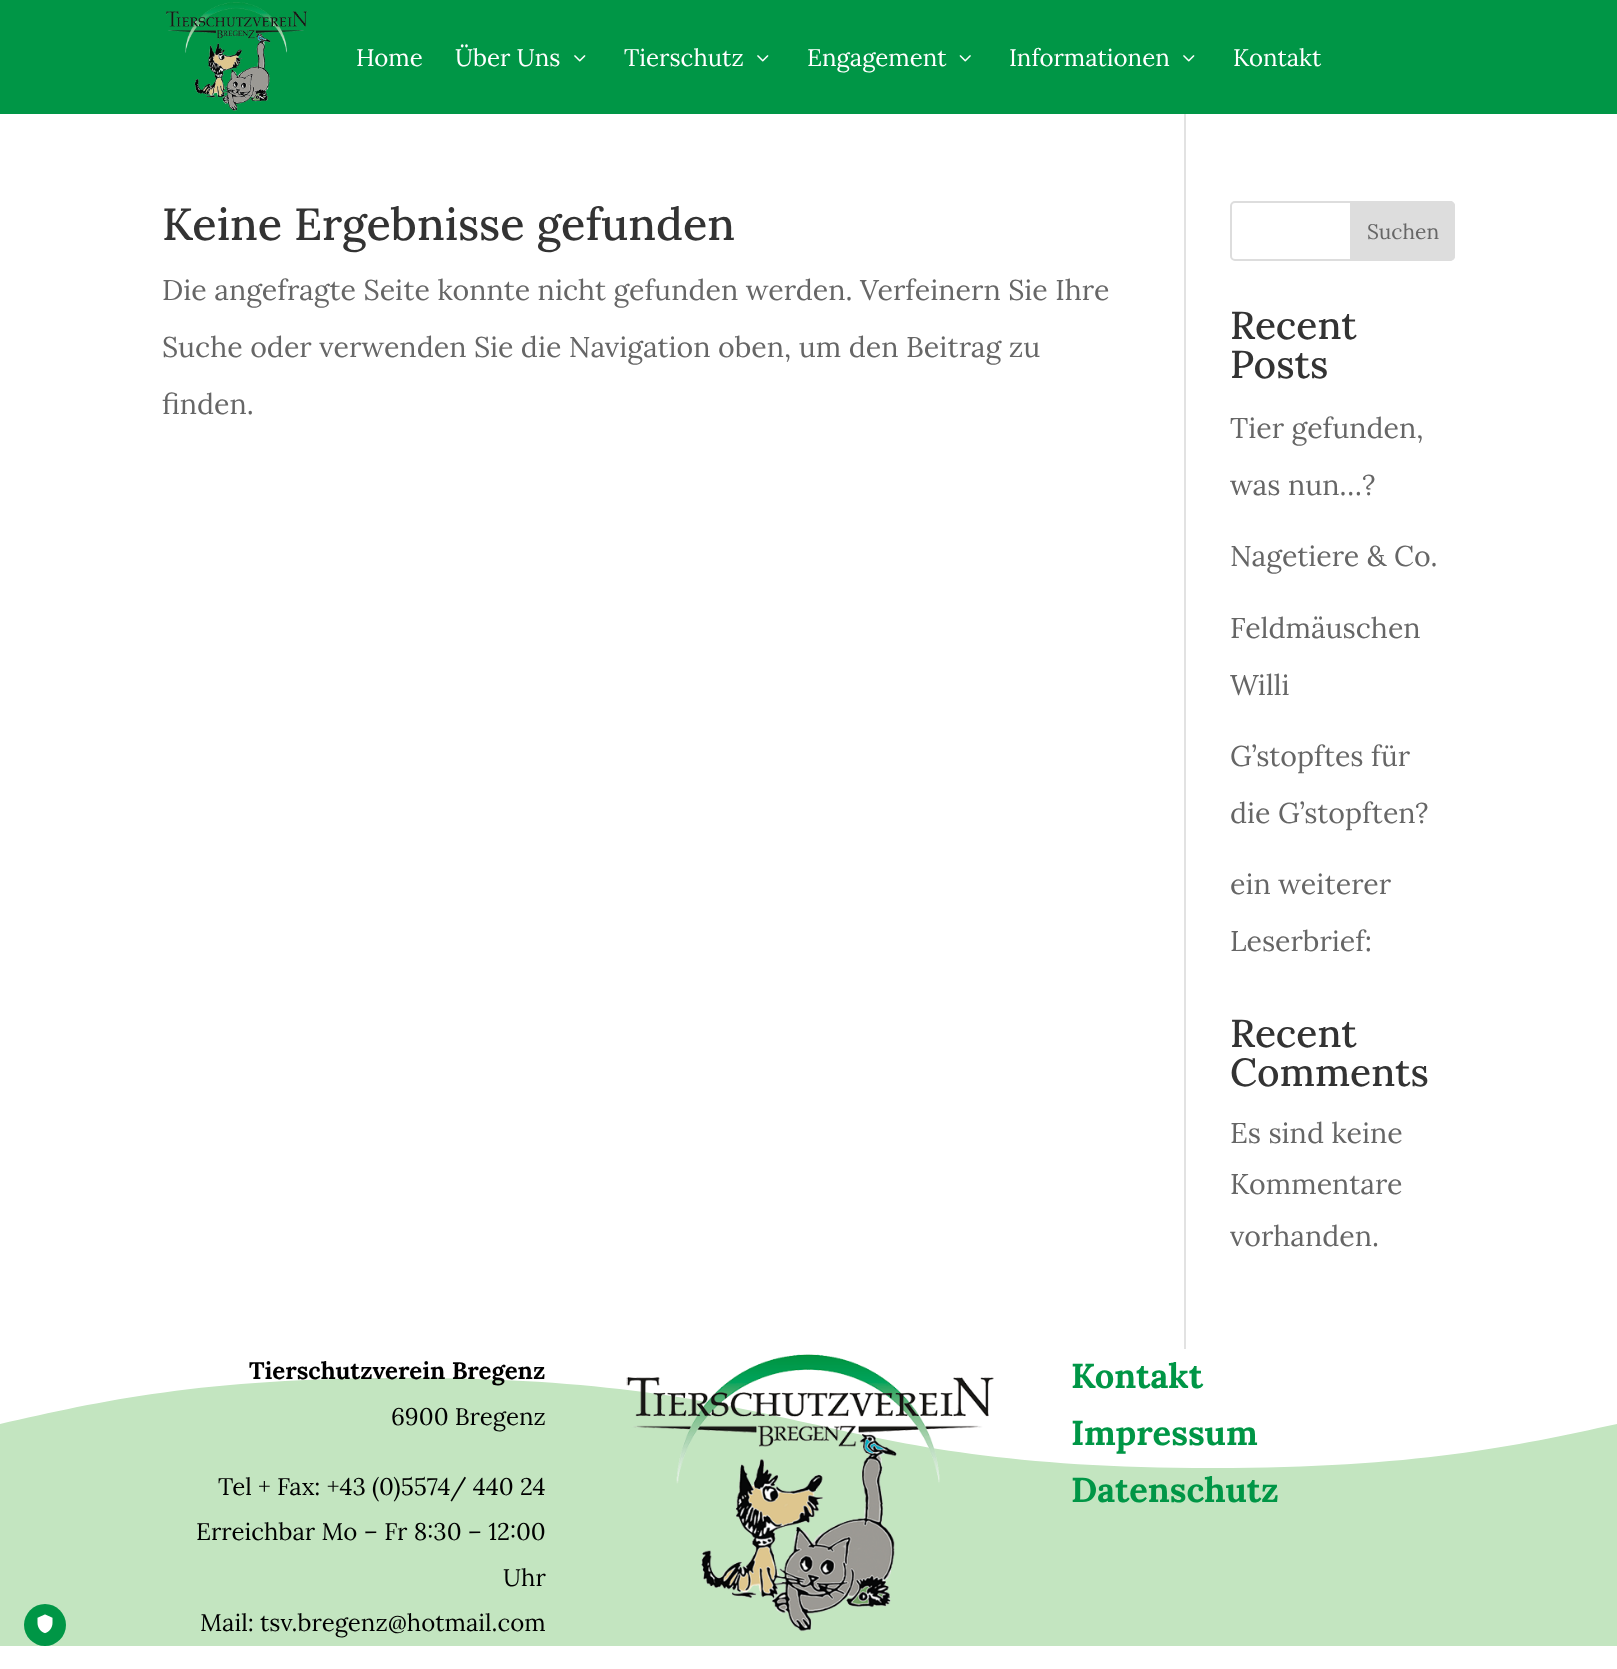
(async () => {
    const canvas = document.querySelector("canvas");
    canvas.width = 1617;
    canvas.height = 1669;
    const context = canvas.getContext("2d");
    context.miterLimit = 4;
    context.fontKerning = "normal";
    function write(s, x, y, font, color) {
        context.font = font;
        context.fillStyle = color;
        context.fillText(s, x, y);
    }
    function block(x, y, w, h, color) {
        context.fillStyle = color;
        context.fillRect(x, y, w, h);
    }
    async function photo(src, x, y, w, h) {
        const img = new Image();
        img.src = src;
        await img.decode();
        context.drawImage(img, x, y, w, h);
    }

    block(0, 0, 1617, 1669, "rgb(255, 255, 255)");
    block(0, 1378, 1617, 268, "rgb(195, 229, 192)");
    context.fillStyle = "rgb(0, 150, 70)";
    context.beginPath();
    context.arc(45, 1625, 21, 0, Math.PI * 2);
    context.fill();
    await photo("media/1.png", 37, 1614, 16, 20);
    block(0, 0, 1617, 114, "rgb(0, 150, 70)");
    await photo("media/2.png", 166, 2, 142, 109);
    write("Home", 356, 66, "24px Lora", "rgb(255, 255, 255)");
    write("Über Uns", 455, 66, "24px Lora", "rgb(255, 255, 255)");
    await photo("media/3.png", 574, 55, 12, 7);
    write("Tierschutz", 624, 66, "24px Lora", "rgb(255, 255, 255)");
    await photo("media/3.png", 757, 55, 12, 7);
    write("Engagement", 807, 66, "24px Lora", "rgb(255, 255, 255)");
    await photo("media/4.png", 959, 55, 12, 7);
    write("Informationen", 1009, 66, "24px Lora", "rgb(255, 255, 255)");
    await photo("media/3.png", 1183, 55, 12, 7);
    write("Kontakt", 1233, 66, "24px Lora", "rgb(255, 255, 255)");
    block(1184, 114, 2, 1235, "rgb(226, 226, 226)");
    write("Keine Ergebnisse gefunden", 162, 240, "500 45px Lora", "rgb(51, 51, 51)");
    write("Die angefragte Seite konnte nicht gefunden werden. Verfeinern Sie Ihre", 162, 300, "28.5px Lora", "rgb(102, 102, 102)");
    write("Suche oder verwenden Sie die Navigation oben, um den Beitrag zu", 162, 357, "28.5px Lora", "rgb(102, 102, 102)");
    write("finden.", 162, 414, "28.5px Lora", "rgb(102, 102, 102)");
    context.beginPath();
    context.roundRect(1231, 202, 223, 58, 4);
    context.strokeStyle = "rgb(221, 221, 221)";
    context.lineWidth = 2;
    context.stroke();
    context.fillStyle = "rgb(221, 221, 221)";
    context.beginPath();
    context.roundRect(1351, 202, 103, 58, [0, 4, 4, 0]);
    context.fill();
    context.stroke();
    write("Suchen", 1367, 239, "21px Lora", "rgb(102, 102, 102)");
    write("Recent", 1230, 339, "500 39px Lora", "rgb(51, 51, 51)");
    write("Posts", 1230, 378, "500 39px Lora", "rgb(51, 51, 51)");
    write("Tier gefunden,", 1230, 438, "28.5px Lora", "rgb(102, 102, 102)");
    write("was nun…?", 1230, 495, "28.5px Lora", "rgb(102, 102, 102)");
    write("Nagetiere & Co.", 1230, 566, "28.5px Lora", "rgb(102, 102, 102)");
    write("Feldmäuschen", 1230, 638, "28.5px Lora", "rgb(102, 102, 102)");
    write("Willi", 1230, 695, "28.5px Lora", "rgb(102, 102, 102)");
    write("G’stopftes für", 1230, 766, "28.5px Lora", "rgb(102, 102, 102)");
    write("die G’stopften?", 1230, 823, "28.5px Lora", "rgb(102, 102, 102)");
    write("ein weiterer", 1230, 894, "28.5px Lora", "rgb(102, 102, 102)");
    write("Leserbrief:", 1230, 951, "28.5px Lora", "rgb(102, 102, 102)");
    write("Recent", 1230, 1047, "500 39px Lora", "rgb(51, 51, 51)");
    write("Comments", 1230, 1086, "500 39px Lora", "rgb(51, 51, 51)");
    write("Es sind keine", 1230, 1143, "28.5px Lora", "rgb(102, 102, 102)");
    write("Kommentare", 1230, 1194, "28.5px Lora", "rgb(102, 102, 102)");
    write("vorhanden.", 1230, 1246, "28.5px Lora", "rgb(102, 102, 102)");
    context.save();
    context.beginPath();
    context.rect(0, 1349, 1617, 150);
    context.clip();
    context.fillStyle = "rgb(255, 255, 255)";
    context.beginPath();
    context.moveTo(404, 1378);
    context.bezierCurveTo(202, 1378, 101, 1401, 0, 1424);
    context.lineTo(0, 1348);
    context.lineTo(1617, 1348);
    context.lineTo(1617, 1424);
    context.bezierCurveTo(1516, 1446, 1415, 1468, 1213, 1468);
    context.bezierCurveTo(808, 1468, 808, 1378, 404, 1378);
    context.closePath();
    context.fill();
    context.restore();
    write("Tierschutzverein Bregenz", 249, 1379, "bold 24px Lora", "rgb(0, 0, 0)");
    write("6900 Bregenz", 391, 1425, "24px Lora", "rgb(0, 0, 0)");
    write("Tel + Fax: +43 (0)5574/ 440 24", 218, 1495, "24px Lora", "rgb(0, 0, 0)");
    write("Erreichbar Mo – Fr 8:30 – 12:00", 196, 1540, "24px Lora", "rgb(0, 0, 0)");
    write("Uhr", 503, 1586, "24px Lora", "rgb(0, 0, 0)");
    write("Mail: tsv.bregenz@hotmail.com", 200, 1631, "24px Lora", "rgb(0, 0, 0)");
    await photo("media/5.png", 626, 1354, 368, 278);
    write("Kontakt", 1071, 1388, "bold 34.5px Lora", "rgb(0, 150, 70)");
    write("Impressum", 1071, 1445, "bold 34.5px Lora", "rgb(0, 150, 70)");
    write("Datenschutz", 1071, 1502, "bold 34.5px Lora", "rgb(0, 150, 70)");
})();
